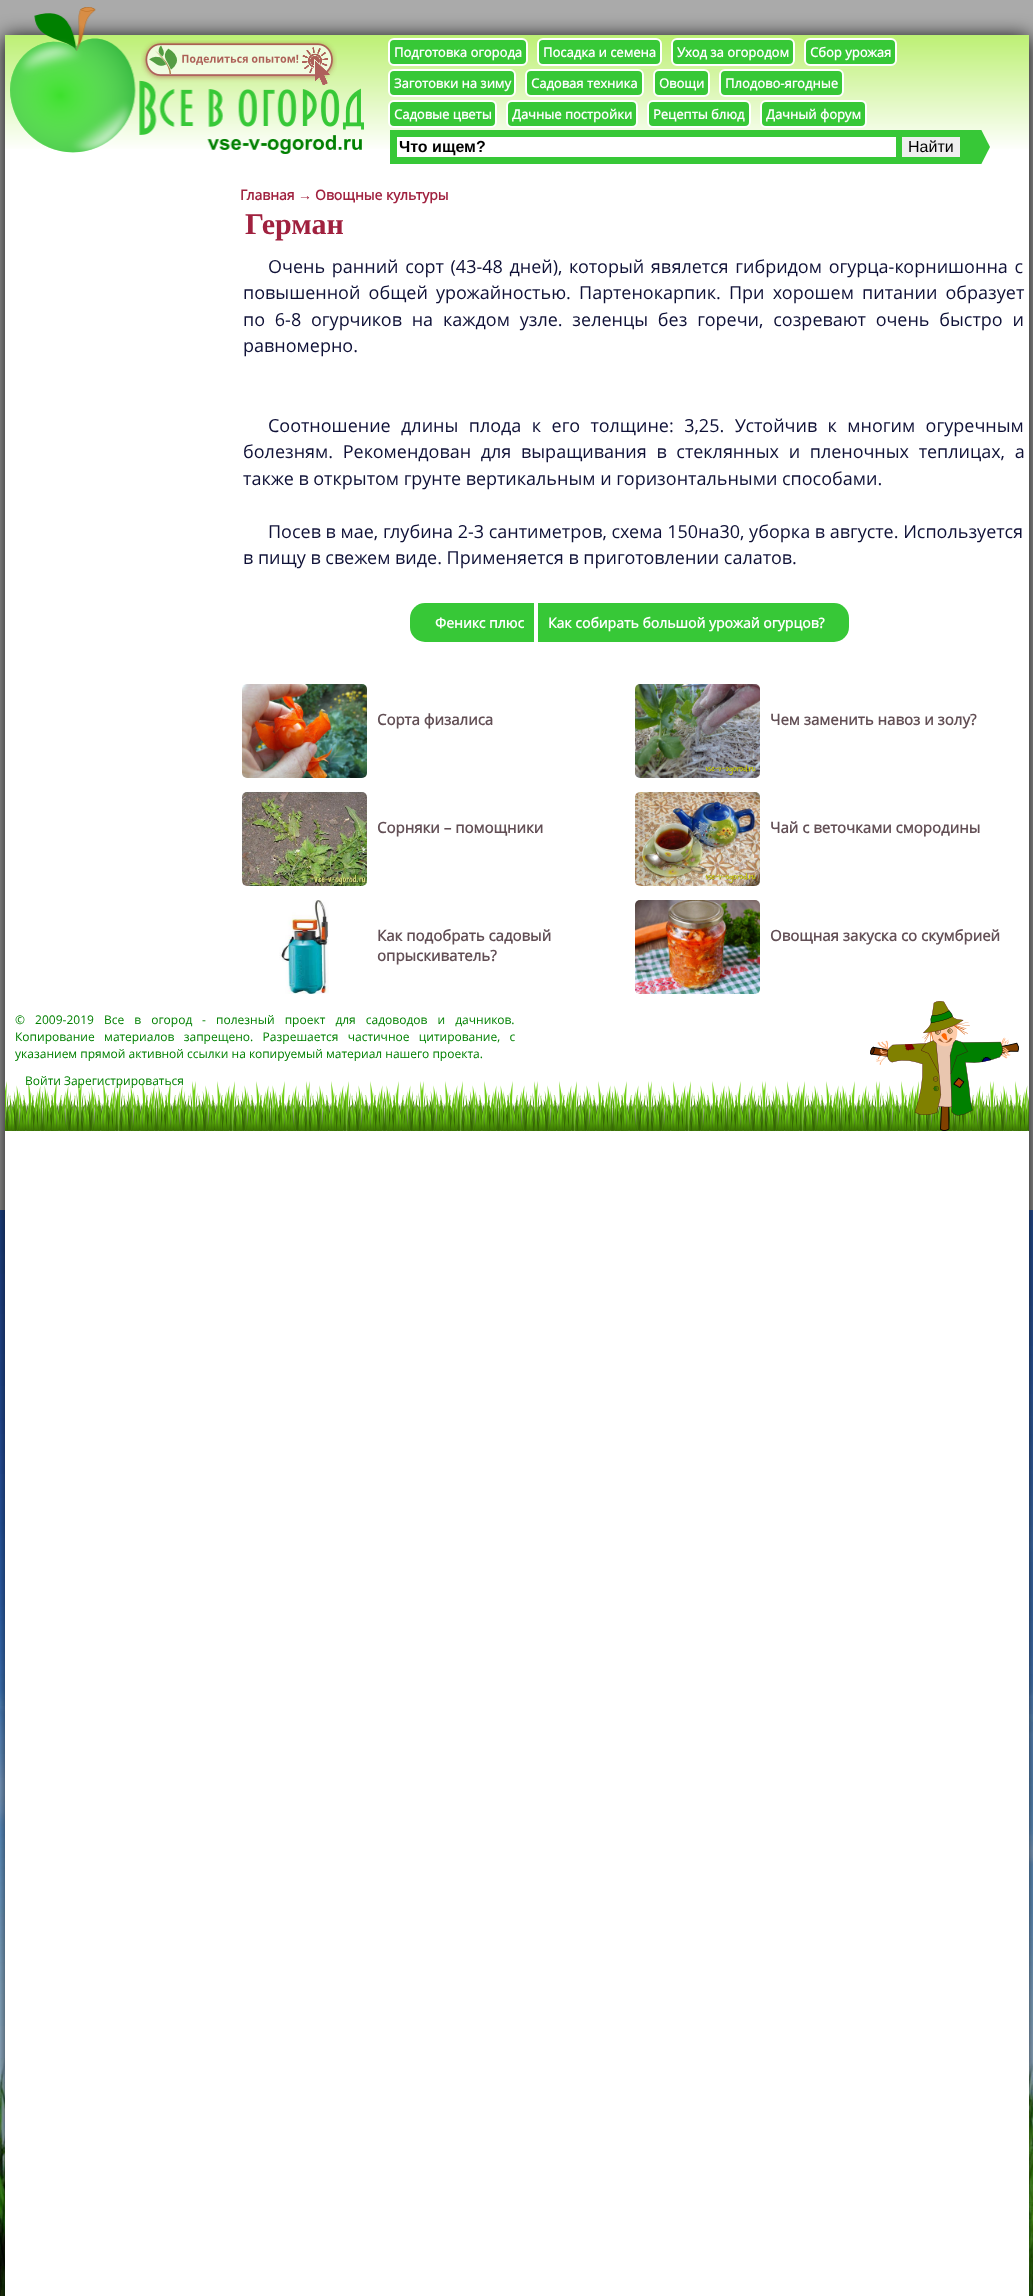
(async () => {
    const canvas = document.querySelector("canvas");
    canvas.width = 1033;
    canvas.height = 2296;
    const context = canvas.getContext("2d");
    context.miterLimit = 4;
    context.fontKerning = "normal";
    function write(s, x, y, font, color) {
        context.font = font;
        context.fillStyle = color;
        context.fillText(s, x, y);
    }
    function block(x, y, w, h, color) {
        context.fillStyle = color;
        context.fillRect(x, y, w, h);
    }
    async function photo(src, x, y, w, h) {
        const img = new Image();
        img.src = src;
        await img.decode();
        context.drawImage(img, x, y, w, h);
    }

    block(0, 0, 1033, 2296, "rgb(170, 170, 170)");
    await photo("media/1.png", 0, 1210, 1033, 1086);
    context.fillStyle = "rgb(0, 0, 0)";
    context.filter = "blur(10px)";
    context.beginPath();
    context.rect(5, 37, 1024, 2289);
    context.fill();
    context.filter = "none";
    block(5, 36, 1024, 2260, "rgb(255, 255, 255)");
    await photo("media/2.png", 5, 35, 1024, 114);
    await photo("media/3.png", 10, 7, 354, 147);
    await photo("media/4.png", 141, 40, 196, 45);
    context.fillStyle = "rgb(55, 200, 55)";
    context.beginPath();
    context.roundRect(389, 39, 138, 26, 5);
    context.fill();
    context.strokeStyle = "rgb(255, 255, 255)";
    context.lineWidth = 2;
    context.stroke();
    write("Подготовка огорода", 394, 57, "bold 13px Open Sans", "rgb(255, 255, 255)");
    context.fillStyle = "rgb(55, 200, 55)";
    context.beginPath();
    context.roundRect(538, 39, 123, 26, 5);
    context.fill();
    context.stroke();
    write("Посадка и семена", 543, 57, "bold 13px Open Sans", "rgb(255, 255, 255)");
    context.fillStyle = "rgb(55, 200, 55)";
    context.beginPath();
    context.roundRect(672, 39, 122, 26, 5);
    context.fill();
    context.stroke();
    write("Уход за огородом", 677, 57, "bold 13px Open Sans", "rgb(255, 255, 255)");
    context.fillStyle = "rgb(55, 200, 55)";
    context.beginPath();
    context.roundRect(805, 39, 91, 26, 5);
    context.fill();
    context.stroke();
    write("Сбор урожая", 810, 57, "bold 13px Open Sans", "rgb(255, 255, 255)");
    context.fillStyle = "rgb(55, 200, 55)";
    context.beginPath();
    context.roundRect(389, 70, 126, 26, 5);
    context.fill();
    context.stroke();
    write("Заготовки на зиму", 394, 88, "bold 13px Open Sans", "rgb(255, 255, 255)");
    context.fillStyle = "rgb(55, 200, 55)";
    context.beginPath();
    context.roundRect(526, 70, 117, 26, 5);
    context.fill();
    context.stroke();
    write("Садовая техника", 531, 88, "bold 13px Open Sans", "rgb(255, 255, 255)");
    context.fillStyle = "rgb(55, 200, 55)";
    context.beginPath();
    context.roundRect(654, 70, 55, 26, 5);
    context.fill();
    context.stroke();
    write("Овощи", 659, 88, "bold 13px Open Sans", "rgb(255, 255, 255)");
    context.fillStyle = "rgb(55, 200, 55)";
    context.beginPath();
    context.roundRect(720, 70, 123, 26, 5);
    context.fill();
    context.stroke();
    write("Плодово-ягодные", 725, 88, "bold 13px Open Sans", "rgb(255, 255, 255)");
    context.fillStyle = "rgb(55, 200, 55)";
    context.beginPath();
    context.roundRect(389, 101, 107, 26, 5);
    context.fill();
    context.stroke();
    write("Садовые цветы", 394, 119, "bold 13px Open Sans", "rgb(255, 255, 255)");
    context.fillStyle = "rgb(55, 200, 55)";
    context.beginPath();
    context.roundRect(507, 101, 130, 26, 5);
    context.fill();
    context.stroke();
    write("Дачные постройки", 512, 119, "bold 13px Open Sans", "rgb(255, 255, 255)");
    context.fillStyle = "rgb(55, 200, 55)";
    context.beginPath();
    context.roundRect(648, 101, 102, 26, 5);
    context.fill();
    context.stroke();
    write("Рецепты блюд", 653, 119, "bold 13px Open Sans", "rgb(255, 255, 255)");
    context.fillStyle = "rgb(55, 200, 55)";
    context.beginPath();
    context.roundRect(761, 101, 105, 26, 5);
    context.fill();
    context.stroke();
    write("Дачный форум", 766, 119, "bold 13px Open Sans", "rgb(255, 255, 255)");
    block(390, 130, 570, 34, "rgb(55, 200, 55)");
    block(397, 137, 499, 20, "rgb(255, 255, 255)");
    write("Что ищем?", 399, 152, "bold 16px Liberation Sans", "rgb(0, 0, 0)");
    block(902, 137, 58, 20, "rgb(239, 239, 239)");
    write("Найти", 908, 152, "16px Liberation Sans", "rgb(0, 0, 0)");
    context.save();
    context.beginPath();
    context.rect(960, 130, 30, 34);
    context.clip();
    context.fillStyle = "rgb(55, 200, 55)";
    context.beginPath();
    context.moveTo(960, 206);
    context.lineTo(960, 88);
    context.lineTo(990, 147);
    context.closePath();
    context.fill();
    context.restore();
    write("Главная", 240, 200, "bold 14px Open Sans", "rgb(160, 33, 63)");
    write("→", 298, 200, "bold 14px Liberation Sans", "rgb(160, 33, 63)");
    write("Овощные культуры", 315, 200, "bold 14px Open Sans", "rgb(160, 33, 63)");
    write("Герман", 245, 234, "bold 30px Liberation Serif", "rgb(160, 33, 63)");
    context.wordSpacing = "2px";
    write("Очень ранний сорт (43-48 дней), который явялется гибридом огурца-корнишонна с", 268, 273, "18px Open Sans", "rgb(14, 16, 54)");
    context.wordSpacing = "3.5px";
    write("повышенной общей урожайностью. Партенокарпик. При хорошем питании образует", 243, 299, "18px Open Sans", "rgb(14, 16, 54)");
    context.wordSpacing = "5.1px";
    write("по 6-8 огурчиков на каждом узле. зеленцы без горечи, созревают очень быстро и", 243, 326, "18px Open Sans", "rgb(14, 16, 54)");
    context.wordSpacing = "0px";
    write("равномерно.", 243, 352, "18px Open Sans", "rgb(14, 16, 54)");
    context.wordSpacing = "5.75px";
    write("Соотношение длины плода к его толщине: 3,25. Устойчив к многим огуречным", 268, 432, "18px Open Sans", "rgb(14, 16, 54)");
    context.wordSpacing = "5px";
    write("болезням. Рекомендован для выращивания в стеклянных и пленочных теплицах, а", 243, 458, "18px Open Sans", "rgb(14, 16, 54)");
    context.wordSpacing = "0px";
    write("также в открытом грунте вертикальным и горизонтальными способами.", 243, 485, "18px Open Sans", "rgb(14, 16, 54)");
    write("Посев в мае, глубина 2-3 сантиметров, схема 150на30, уборка в августе. Используется", 268, 538, "18px Open Sans", "rgb(14, 16, 54)");
    write("в пищу в свежем виде. Применяется в приготовлении салатов.", 243, 564, "18px Open Sans", "rgb(14, 16, 54)");
    context.fillStyle = "rgb(55, 200, 55)";
    context.beginPath();
    context.roundRect(410, 603, 124, 39, [15, 0, 0, 15]);
    context.fill();
    write("Феникс плюс", 435, 628, "bold 14px Open Sans", "rgb(255, 255, 255)");
    context.fillStyle = "rgb(55, 200, 55)";
    context.beginPath();
    context.roundRect(538, 603, 311, 39, [0, 15, 15, 0]);
    context.fill();
    write("Как собирать большой урожай огурцов?", 548, 628, "bold 14px Open Sans", "rgb(255, 255, 255)");
    await photo("media/5.png", 242, 684, 125, 94);
    write("Сорта физалиса", 377, 725, "bold 15px Open Sans", "rgb(98, 79, 85)");
    await photo("media/6.png", 635, 684, 125, 94);
    write("Чем заменить навоз и золу?", 770, 725, "bold 15px Open Sans", "rgb(98, 79, 85)");
    await photo("media/7.png", 242, 792, 125, 94);
    write("Сорняки – помощники", 377, 833, "bold 15px Open Sans", "rgb(98, 79, 85)");
    await photo("media/8.png", 635, 792, 125, 94);
    write("Чай с веточками смородины", 770, 833, "bold 15px Open Sans", "rgb(98, 79, 85)");
    await photo("media/9.png", 279, 900, 50, 94);
    write("Как подобрать садовый", 377, 941, "bold 15px Open Sans", "rgb(98, 79, 85)");
    write("опрыскиватель?", 377, 961, "bold 15px Open Sans", "rgb(98, 79, 85)");
    await photo("media/10.png", 635, 900, 125, 94);
    write("Овощная закуска со скумбрией", 770, 941, "bold 15px Open Sans", "rgb(98, 79, 85)");
    await photo("media/11.png", 5, 1081, 1024, 50);
    context.wordSpacing = "7px";
    write("© 2009-2019", 15, 1024, "12px Open Sans", "rgb(0, 128, 0)");
    write("Все в огород", 104, 1024, "12px Open Sans", "rgb(0, 128, 0)");
    context.wordSpacing = "0px";
    write("-", 202, 1024, "12px Open Sans", "rgb(0, 128, 0)");
    context.wordSpacing = "7px";
    write("полезный проект для садоводов и дачников.", 216, 1024, "12px Open Sans", "rgb(0, 128, 0)");
    context.wordSpacing = "6.25px";
    write("Копирование материалов запрещено. Разрешается частичное цитирование, с", 15, 1041, "12px Open Sans", "rgb(0, 128, 0)");
    context.wordSpacing = "0px";
    write("указанием прямой активной ссылки на копируемый материал нашего проекта.", 15, 1058, "12px Open Sans", "rgb(0, 128, 0)");
    write("Войти Зарегистрироваться", 25, 1085, "12px Open Sans", "rgb(0, 128, 0)");
    await photo("media/12.png", 870, 1001, 149, 130);
})();
